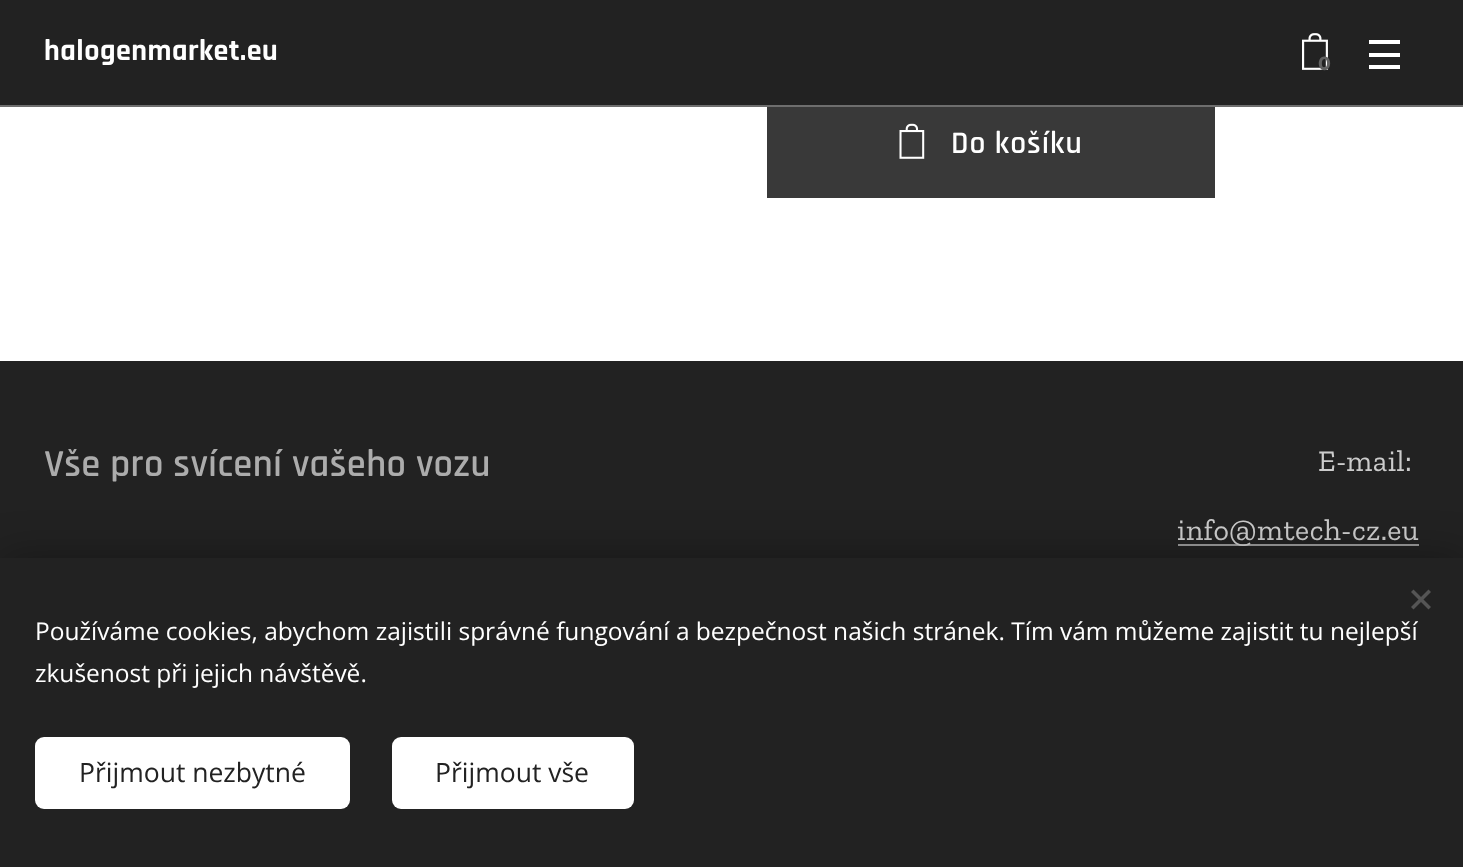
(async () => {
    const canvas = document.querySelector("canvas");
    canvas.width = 1463;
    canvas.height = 867;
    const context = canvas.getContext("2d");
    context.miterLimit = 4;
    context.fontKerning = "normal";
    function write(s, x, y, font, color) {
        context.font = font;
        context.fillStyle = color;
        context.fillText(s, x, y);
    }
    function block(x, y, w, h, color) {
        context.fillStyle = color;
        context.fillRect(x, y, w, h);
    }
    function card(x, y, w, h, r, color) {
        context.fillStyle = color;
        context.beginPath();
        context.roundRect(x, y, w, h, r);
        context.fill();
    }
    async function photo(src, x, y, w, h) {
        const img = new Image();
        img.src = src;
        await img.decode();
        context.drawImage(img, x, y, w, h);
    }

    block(0, 0, 1463, 867, "rgb(255, 255, 255)");
    block(0, 0, 1463, 105, "rgb(34, 34, 34)");
    block(0, 105, 1463, 2, "rgb(110, 110, 110)");
    context.letterSpacing = "0.5px";
    write("halogenmarket.eu", 44, 60, "bold 30px Rajdhani", "rgb(255, 255, 255)");
    await photo("media/1.png", 1302, 33, 26, 37);
    context.letterSpacing = "0px";
    write("0", 1318, 70, "bold 19px Montserrat", "rgb(97, 97, 97)");
    block(1369, 53, 31, 4, "rgb(255, 255, 255)");
    block(1369, 40, 31, 4, "rgb(255, 255, 255)");
    block(1369, 65, 31, 4, "rgb(255, 255, 255)");
    block(767, 107, 448, 91, "rgb(57, 57, 57)");
    await photo("media/2.png", 899, 123, 26, 36);
    context.letterSpacing = "1px";
    write("Do košíku", 951, 153, "600 31.5px Rajdhani", "rgb(255, 255, 255)");
    block(0, 361, 1463, 197, "rgb(34, 34, 34)");
    context.letterSpacing = "0.4px";
    write("Vše pro svícení vašeho vozu", 44, 476, "600 38.5px Rajdhani", "rgb(172, 172, 172)");
    context.letterSpacing = "0.5px";
    write("E-mail:", 1318, 471, "30px Zilla Slab", "rgb(204, 204, 204)");
    block(1178, 544, 241, 2, "rgb(153, 153, 153)");
    write("info@mtech-cz.eu", 1177, 540, "30px Zilla Slab", "rgb(204, 204, 204)");
    context.fillStyle = "rgba(0, 0, 0, 0.33)";
    context.filter = "blur(22px)";
    context.beginPath();
    context.rect(0, 558, 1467, 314);
    context.fill();
    context.filter = "none";
    block(0, 558, 1463, 309, "rgb(34, 34, 34)");
    context.fillStyle = "rgb(85, 85, 85)";
    context.beginPath();
    context.moveTo(1411, 607);
    context.lineTo(1428.5, 589.5);
    context.lineTo(1431, 592);
    context.lineTo(1413.5, 609.5);
    context.closePath();
    context.fill();
    context.beginPath();
    context.moveTo(1413.5, 589.5);
    context.lineTo(1431, 607);
    context.lineTo(1428.5, 609.5);
    context.lineTo(1411, 592);
    context.closePath();
    context.fill();
    context.letterSpacing = "0px";
    write("Používáme cookies, abychom zajistili správné fungování a bezpečnost našich stránek. Tím vám můžeme zajistit tu nejlepší", 35, 640, "24.5px Open Sans", "rgb(255, 255, 255)");
    write("zkušenost při jejich návštěvě.", 35, 682, "24.5px Open Sans", "rgb(255, 255, 255)");
    card(35, 737, 315, 72, 9, "rgb(255, 255, 255)");
    write("Přijmout nezbytné", 79, 782, "26.5px Open Sans", "rgb(34, 34, 34)");
    card(392, 737, 242, 72, 9, "rgb(255, 255, 255)");
    write("Přijmout vše", 435, 782, "26.5px Open Sans", "rgb(34, 34, 34)");
})();
